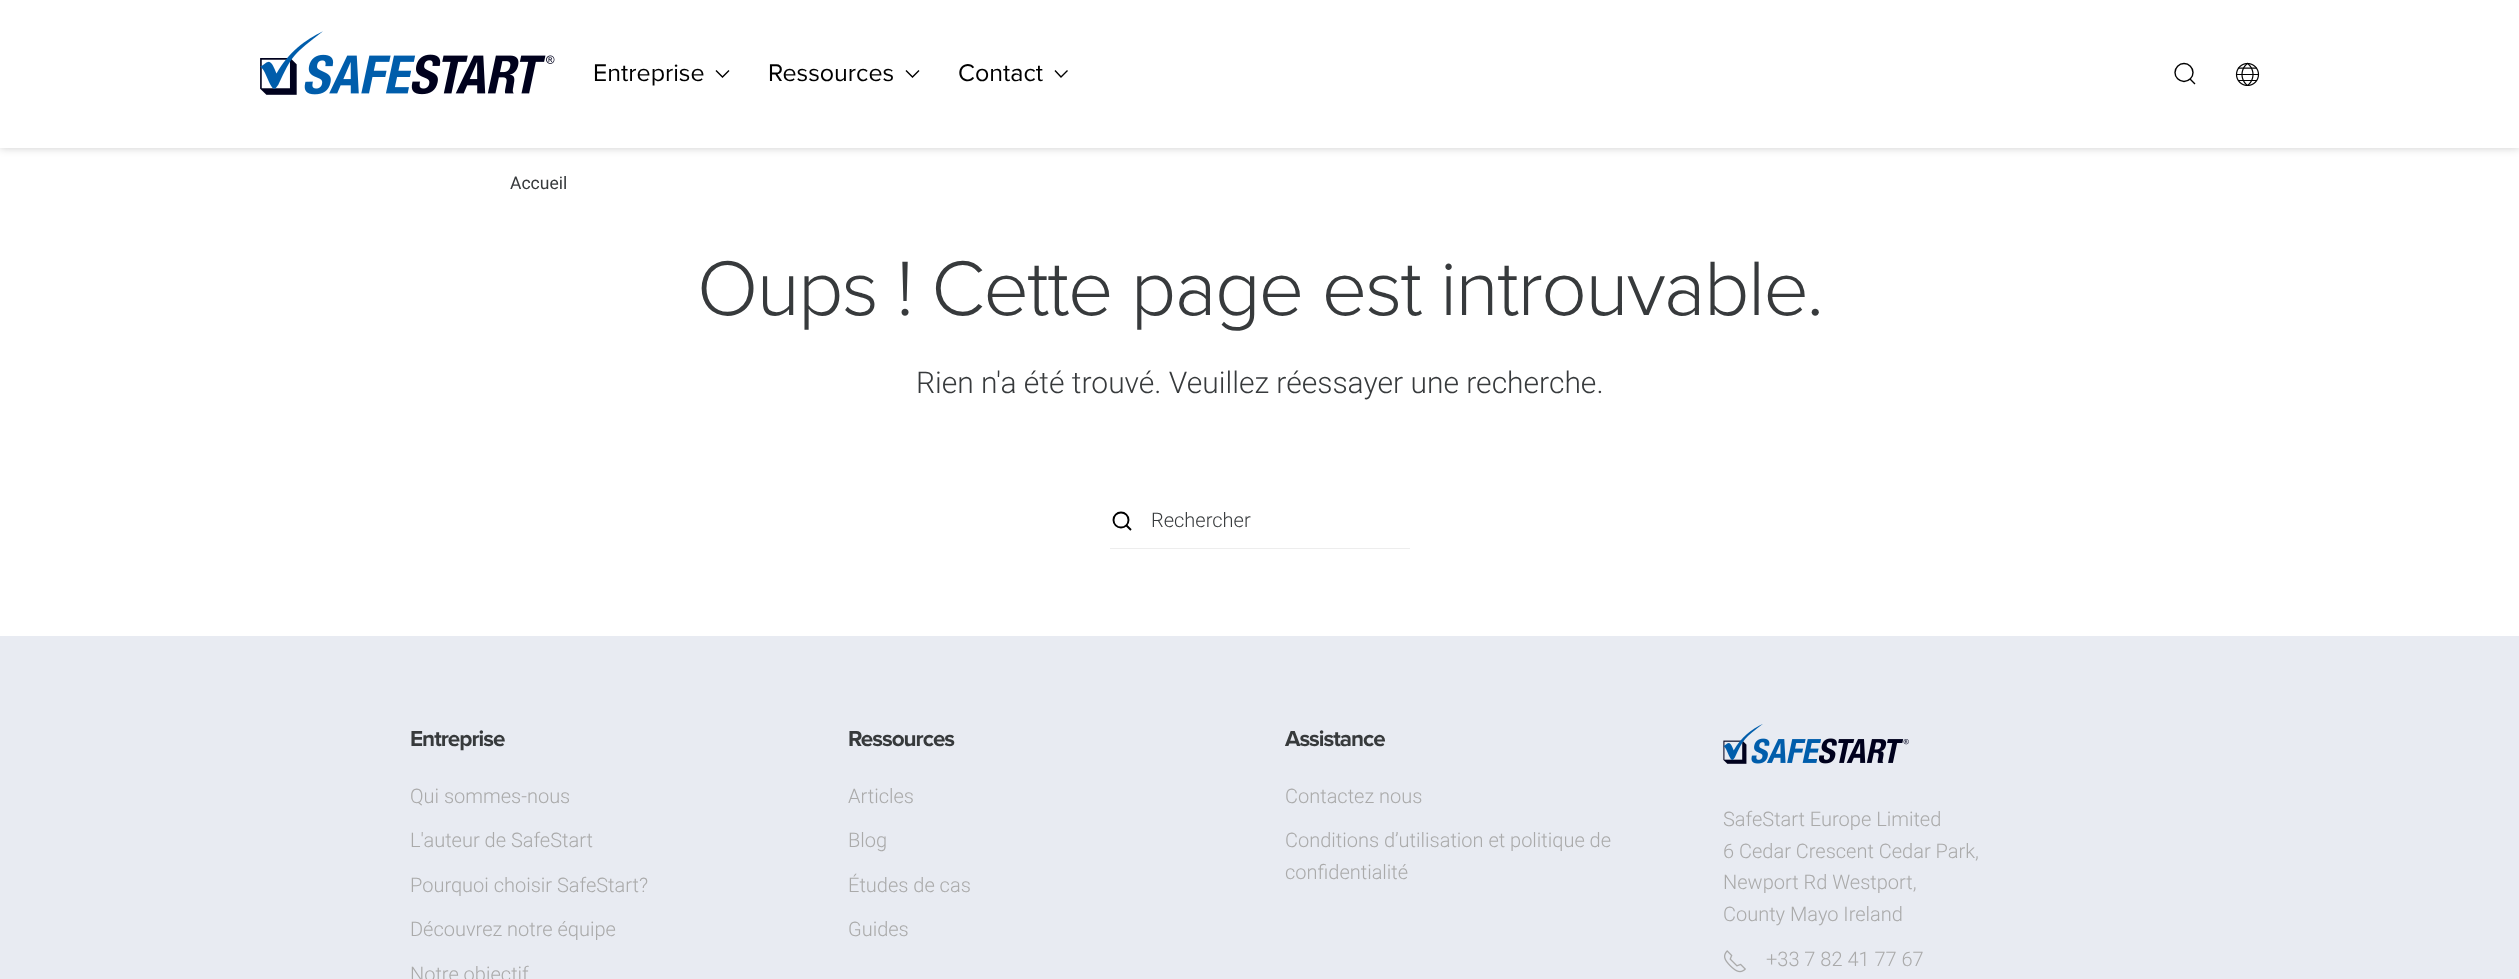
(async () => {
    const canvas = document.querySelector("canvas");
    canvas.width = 2519;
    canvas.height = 979;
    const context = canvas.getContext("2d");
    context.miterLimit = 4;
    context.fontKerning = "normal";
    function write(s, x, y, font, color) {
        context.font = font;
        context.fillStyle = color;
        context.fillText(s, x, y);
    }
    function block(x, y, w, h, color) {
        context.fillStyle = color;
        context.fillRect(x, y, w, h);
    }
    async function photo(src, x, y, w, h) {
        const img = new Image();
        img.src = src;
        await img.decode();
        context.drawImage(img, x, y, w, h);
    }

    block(0, 0, 2519, 979, "rgb(255, 255, 255)");
    context.fillStyle = "rgba(0, 0, 0, 0.2)";
    context.filter = "blur(4px)";
    context.beginPath();
    context.rect(0, 0, 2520, 148);
    context.fill();
    context.filter = "none";
    block(0, 0, 2519, 148, "rgb(255, 255, 255)");
    await photo("media/1.png", 260, 31, 295, 64);
    write("Entreprise", 593, 81, "25px Proxima Nova", "rgb(0, 0, 0)");
    context.beginPath();
    context.moveTo(716, 70.5);
    context.lineTo(722.5, 77);
    context.lineTo(729, 70.5);
    context.strokeStyle = "rgb(0, 0, 0)";
    context.lineWidth = 1.4;
    context.stroke();
    write("Ressources", 768, 81, "25px Proxima Nova", "rgb(0, 0, 0)");
    context.beginPath();
    context.moveTo(906, 70.5);
    context.lineTo(912.5, 77);
    context.lineTo(919, 70.5);
    context.stroke();
    write("Contact", 958, 81, "25px Proxima Nova", "rgb(0, 0, 0)");
    context.beginPath();
    context.moveTo(1055, 70.5);
    context.lineTo(1061, 77);
    context.lineTo(1067.5, 70.5);
    context.stroke();
    context.beginPath();
    context.arc(2184, 72.5, 9, 0, Math.PI * 2);
    context.stroke();
    context.beginPath();
    context.moveTo(2190, 79);
    context.lineTo(2195, 84);
    context.closePath();
    context.stroke();
    await photo("media/2.png", 2235, 62, 25, 24);
    write("Accueil", 510, 189, "17.5px Roboto", "rgb(55, 58, 60)");
    context.letterSpacing = "-1.6px";
    write("Oups ! Cette page est introuvable.", 697, 315, "300 80px Proxima Nova", "rgb(55, 58, 60)");
    context.letterSpacing = "0px";
    write("Rien n'a été trouvé. Veuillez réessayer une recherche.", 916, 393, "300 30px Roboto", "rgb(55, 58, 60)");
    context.beginPath();
    context.arc(1121, 520, 7.5, 0, Math.PI * 2);
    context.lineWidth = 1.9;
    context.stroke();
    context.beginPath();
    context.moveTo(1126, 525);
    context.lineTo(1131, 530);
    context.closePath();
    context.stroke();
    block(1110, 548, 300, 1, "rgb(237, 237, 237)");
    write("Rechercher", 1151, 527, "300 20px Roboto", "rgb(55, 58, 60)");
    block(0, 636, 2519, 343, "rgb(232, 235, 242)");
    context.letterSpacing = "-1px";
    write("Entreprise", 410, 746, "bold 22.5px Proxima Nova", "rgb(55, 58, 60)");
    context.letterSpacing = "0px";
    write("Qui sommes-nous", 410, 803, "300 20px Roboto", "rgb(170, 170, 170)");
    write("L'auteur de SafeStart", 410, 847, "300 20px Roboto", "rgb(170, 170, 170)");
    write("Pourquoi choisir SafeStart?", 410, 892, "300 20px Roboto", "rgb(170, 170, 170)");
    write("Découvrez notre équipe", 410, 936, "300 20px Roboto", "rgb(170, 170, 170)");
    write("Notre objectif", 410, 981, "300 20px Roboto", "rgb(170, 170, 170)");
    context.letterSpacing = "-1px";
    write("Ressources", 848, 746, "bold 22.5px Proxima Nova", "rgb(55, 58, 60)");
    context.letterSpacing = "0px";
    write("Articles", 848, 803, "300 20px Roboto", "rgb(170, 170, 170)");
    write("Blog", 848, 847, "300 20px Roboto", "rgb(170, 170, 170)");
    write("Études de cas", 848, 892, "300 20px Roboto", "rgb(170, 170, 170)");
    write("Guides", 848, 936, "300 20px Roboto", "rgb(170, 170, 170)");
    context.letterSpacing = "-1px";
    write("Assistance", 1285, 746, "bold 22.5px Proxima Nova", "rgb(55, 58, 60)");
    context.letterSpacing = "0px";
    write("Contactez nous", 1285, 803, "300 20px Roboto", "rgb(170, 170, 170)");
    write("Conditions d’utilisation et politique de", 1285, 847, "300 20px Roboto", "rgb(170, 170, 170)");
    write("confidentialité", 1285, 879, "300 20px Roboto", "rgb(170, 170, 170)");
    await photo("media/3.png", 1723, 724, 186, 40);
    write("SafeStart Europe Limited", 1723, 826, "300 20px Roboto", "rgb(170, 170, 170)");
    write("6 Cedar Crescent Cedar Park,", 1723, 858, "300 20px Roboto", "rgb(170, 170, 170)");
    write("Newport Rd Westport,", 1723, 889, "300 20px Roboto", "rgb(170, 170, 170)");
    write("County Mayo Ireland", 1723, 921, "300 20px Roboto", "rgb(170, 170, 170)");
    await photo("media/4.png", 1724, 950, 22, 23);
    write("+33 7 82 41 77 67", 1766, 966, "300 20px Roboto", "rgb(170, 170, 170)");
})();
